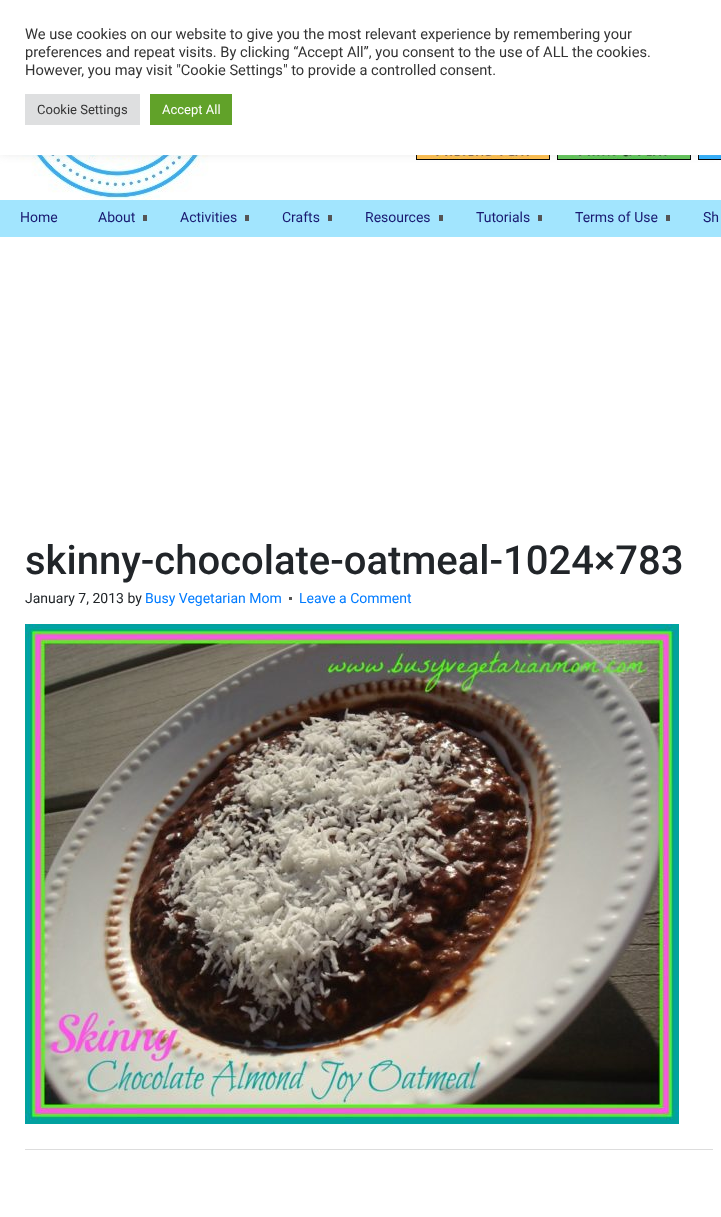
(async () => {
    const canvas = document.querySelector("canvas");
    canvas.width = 721;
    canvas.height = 1217;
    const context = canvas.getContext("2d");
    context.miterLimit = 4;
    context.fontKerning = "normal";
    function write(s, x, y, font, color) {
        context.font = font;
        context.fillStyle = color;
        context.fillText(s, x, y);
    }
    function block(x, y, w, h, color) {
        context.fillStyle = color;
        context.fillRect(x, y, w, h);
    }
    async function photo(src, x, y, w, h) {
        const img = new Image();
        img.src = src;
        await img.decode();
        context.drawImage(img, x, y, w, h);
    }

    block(0, 0, 721, 1217, "rgb(255, 255, 255)");
    await photo("media/1.png", 16, 155, 208, 45);
    context.strokeStyle = "rgb(0, 0, 0)";
    context.strokeRect(416.5, 26.5, 133, 133);
    await photo("media/2.png", 417, 155, 132, 4);
    context.strokeRect(557.5, 26.5, 133, 133);
    await photo("media/3.png", 558, 155, 132, 4);
    context.strokeRect(698.5, 26.5, 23, 133);
    await photo("media/4.png", 699, 155, 22, 4);
    context.fillStyle = "rgba(172, 171, 171, 0.3)";
    context.filter = "blur(5px)";
    context.beginPath();
    context.rect(0, -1, 721, 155);
    context.fill();
    context.filter = "none";
    block(0, 0, 721, 155, "rgb(255, 255, 255)");
    write("We use cookies on our website to give you the most relevant experience by remembering your", 25, 39, "14.65px Roboto", "rgb(51, 51, 51)");
    write("preferences and repeat visits. By clicking “Accept All”, you consent to the use of ALL the cookies.", 25, 57, "14.65px Roboto", "rgb(51, 51, 51)");
    write("However, you may visit \"Cookie Settings\" to provide a controlled consent.", 25, 75, "14.65px Roboto", "rgb(51, 51, 51)");
    block(25, 94, 115, 31, "rgb(222, 223, 224)");
    write("Cookie Settings", 37, 114, "13px Roboto", "rgb(51, 51, 51)");
    block(150, 94, 82, 31, "rgb(97, 162, 41)");
    write("Accept All", 162, 114, "13px Roboto", "rgb(255, 255, 255)");
    block(0, 200, 721, 37, "rgb(162, 229, 254)");
    write("Home", 20, 222, "14px Roboto", "rgb(25, 25, 112)");
    write("About", 98, 222, "14px Roboto", "rgb(25, 25, 112)");
    block(143, 215, 4, 6, "rgb(85, 85, 85)");
    write("Activities", 180, 222, "14px Roboto", "rgb(25, 25, 112)");
    block(245, 215, 4, 6, "rgb(85, 85, 85)");
    write("Crafts", 282, 222, "14px Roboto", "rgb(25, 25, 112)");
    block(328, 215, 4, 6, "rgb(85, 85, 85)");
    write("Resources", 365, 222, "14px Roboto", "rgb(25, 25, 112)");
    block(439, 215, 4, 6, "rgb(85, 85, 85)");
    write("Tutorials", 476, 222, "14px Roboto", "rgb(25, 25, 112)");
    block(538, 215, 4, 6, "rgb(85, 85, 85)");
    write("Terms of Use", 575, 222, "14px Roboto", "rgb(25, 25, 112)");
    block(666, 215, 4, 6, "rgb(85, 85, 85)");
    write("Sh", 703, 222, "14px Roboto", "rgb(25, 25, 112)");
    write("skinny-chocolate-oatmeal-1024×783", 25, 574, "500 40px Roboto", "rgb(33, 37, 41)");
    write("January 7, 2013 by", 25, 603, "14px Roboto", "rgb(33, 37, 41)");
    write("Busy Vegetarian Mom", 145, 603, "14px Roboto", "rgb(0, 123, 255)");
    write("Leave a Comment", 299, 603, "14px Roboto", "rgb(0, 123, 255)");
    block(289, 597, 3, 3, "rgb(85, 85, 85)");
    await photo("media/5.png", 25, 624, 654, 500);
    block(25, 1149, 688, 1, "rgb(221, 221, 221)");
})();
